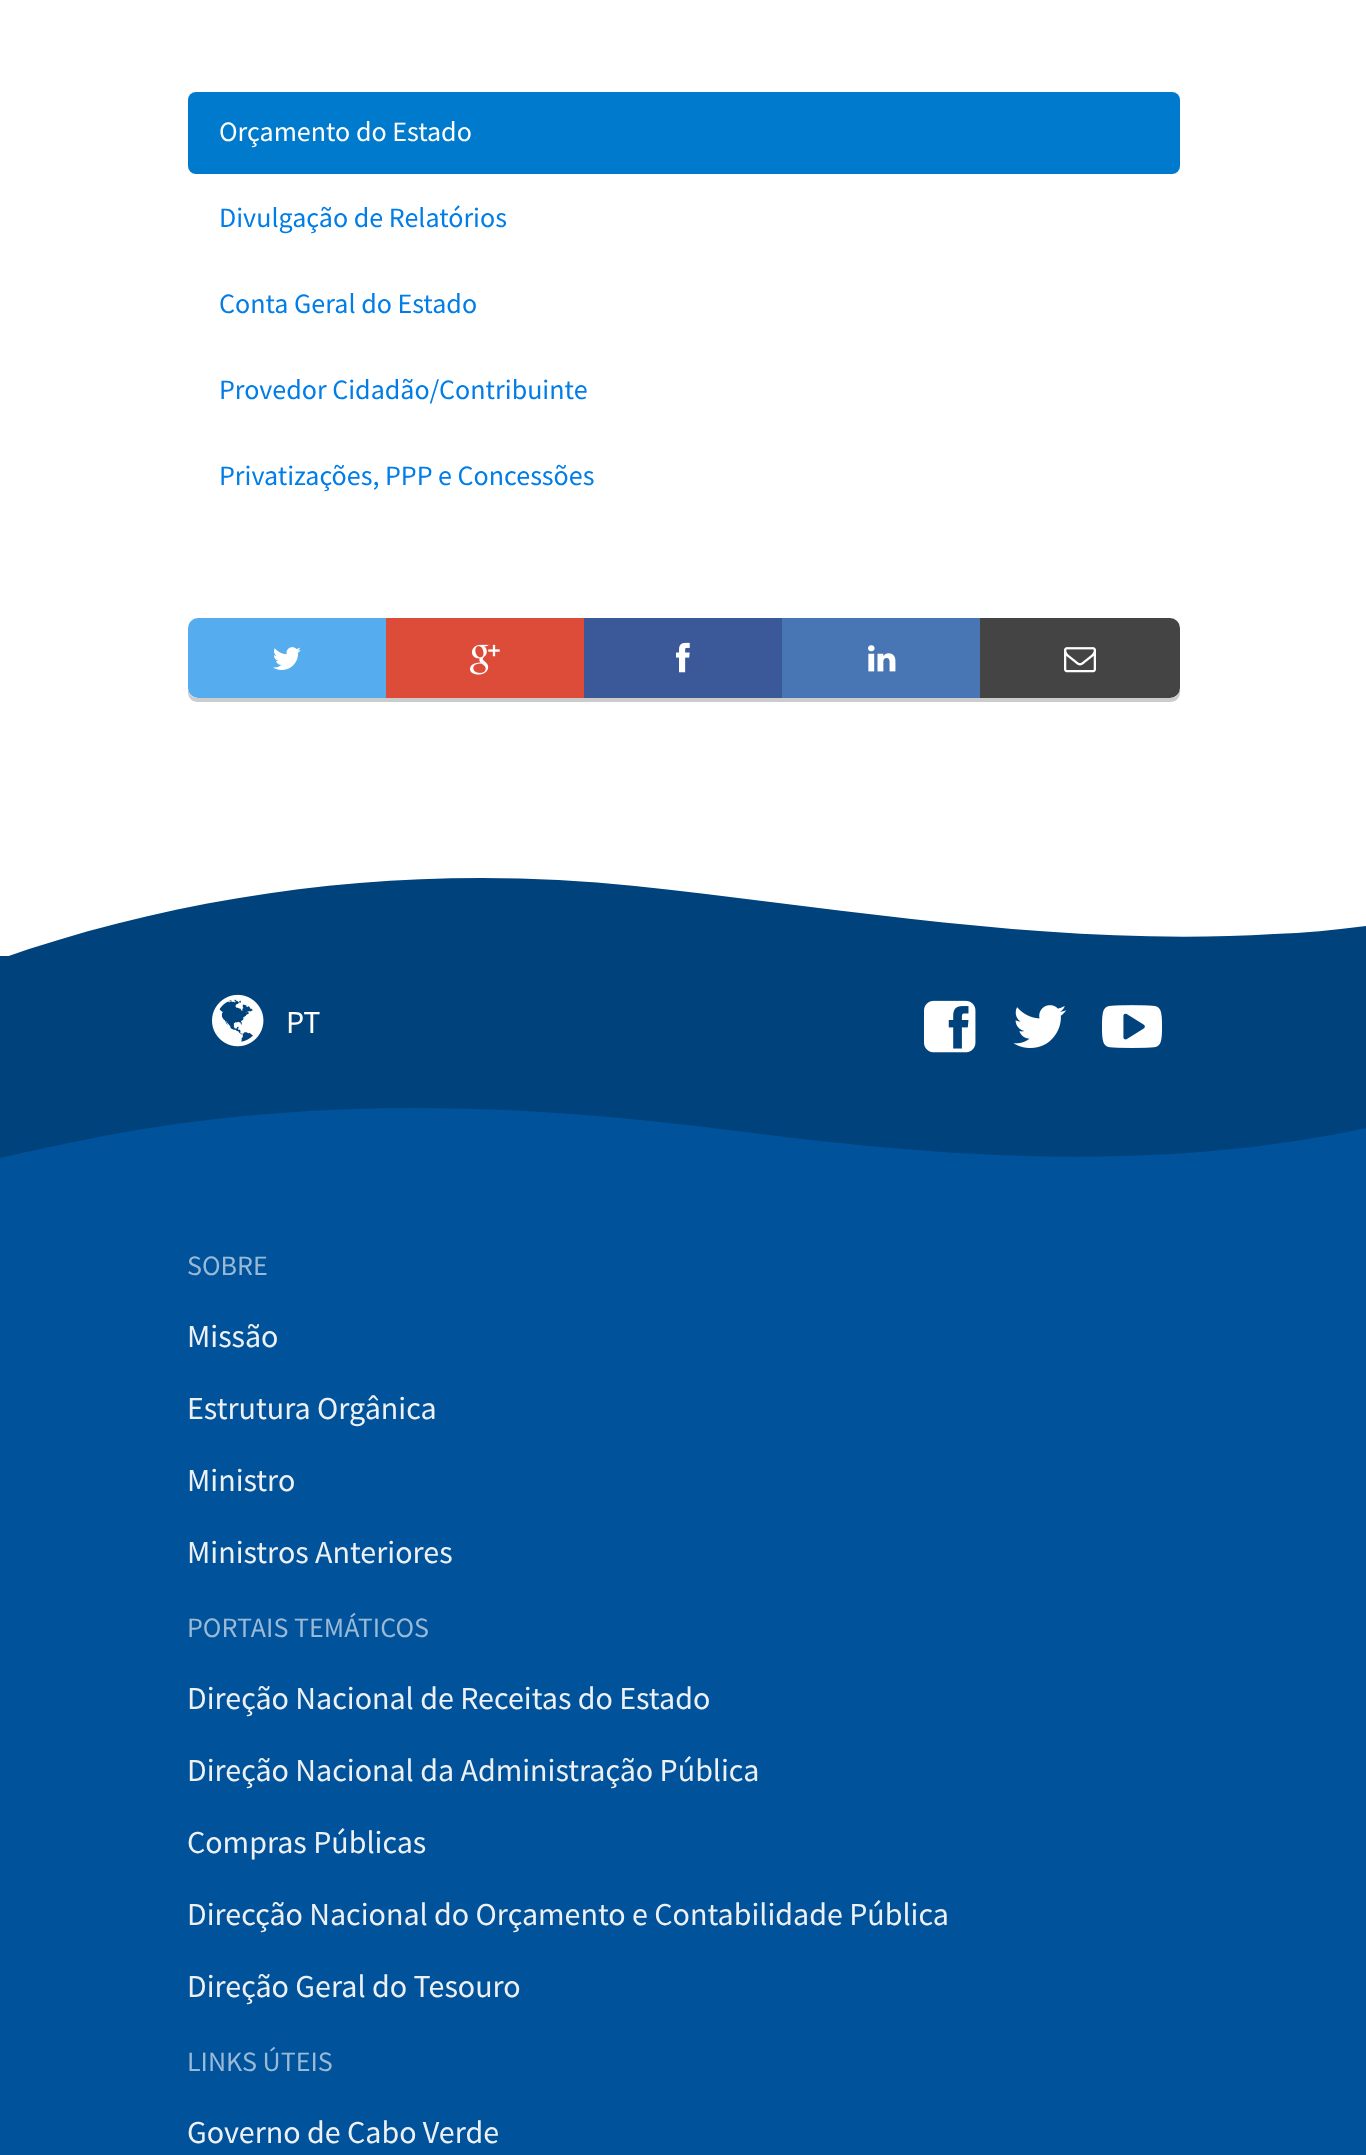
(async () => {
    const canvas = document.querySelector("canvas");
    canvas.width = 1366;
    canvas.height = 2155;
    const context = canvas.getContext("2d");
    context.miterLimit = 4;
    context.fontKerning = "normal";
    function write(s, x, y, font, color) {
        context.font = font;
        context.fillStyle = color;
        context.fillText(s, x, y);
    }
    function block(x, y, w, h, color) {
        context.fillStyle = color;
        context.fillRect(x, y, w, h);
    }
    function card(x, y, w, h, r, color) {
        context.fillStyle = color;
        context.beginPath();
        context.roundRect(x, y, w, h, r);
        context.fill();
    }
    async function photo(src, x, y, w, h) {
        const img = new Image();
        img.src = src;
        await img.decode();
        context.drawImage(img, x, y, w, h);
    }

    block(0, 0, 1366, 2155, "rgb(255, 255, 255)");
    card(188, 92, 992, 82, 8, "rgb(0, 122, 204)");
    write("Orçamento do Estado", 219, 141, "28px Source Sans Pro", "rgb(255, 255, 255)");
    write("Divulgação de Relatórios", 219, 227, "28px Source Sans Pro", "rgb(0, 125, 232)");
    write("Conta Geral do Estado", 219, 313, "28px Source Sans Pro", "rgb(0, 125, 232)");
    write("Provedor Cidadão/Contribuinte", 219, 399, "28px Source Sans Pro", "rgb(0, 125, 232)");
    write("Privatizações, PPP e Concessões", 219, 485, "28px Source Sans Pro", "rgb(0, 125, 232)");
    context.fillStyle = "rgb(204, 204, 204)";
    context.beginPath();
    context.moveTo(188, 688);
    context.lineTo(188, 692);
    context.bezierCurveTo(188, 698, 192, 702, 198, 702);
    context.lineTo(386, 702);
    context.lineTo(386, 698);
    context.lineTo(198, 698);
    context.bezierCurveTo(192, 698, 188, 694, 188, 688);
    context.closePath();
    context.fill();
    context.fillStyle = "rgb(85, 172, 238)";
    context.beginPath();
    context.roundRect(188, 618, 198, 80, [10, 0, 0, 10]);
    context.fill();
    await photo("media/1.png", 273, 647, 28, 23);
    block(386, 698, 594, 4, "rgb(204, 204, 204)");
    block(386, 618, 198, 80, "rgb(221, 75, 57)");
    await photo("media/2.png", 470, 644, 30, 31);
    block(584, 618, 198, 80, "rgb(59, 89, 152)");
    await photo("media/3.png", 676, 642, 14, 31);
    block(782, 618, 198, 80, "rgb(72, 117, 180)");
    await photo("media/4.png", 868, 645, 28, 27);
    context.fillStyle = "rgb(204, 204, 204)";
    context.beginPath();
    context.moveTo(980, 698);
    context.lineTo(980, 702);
    context.lineTo(1170, 702);
    context.bezierCurveTo(1176, 702, 1180, 698, 1180, 692);
    context.lineTo(1180, 688);
    context.bezierCurveTo(1180, 694, 1176, 698, 1170, 698);
    context.closePath();
    context.fill();
    context.fillStyle = "rgb(68, 68, 68)";
    context.beginPath();
    context.roundRect(980, 618, 200, 80, [0, 10, 10, 0]);
    context.fill();
    await photo("media/5.png", 1064, 647, 32, 26);
    context.fillStyle = "rgb(0, 66, 124)";
    context.beginPath();
    context.moveTo(1366, 959);
    context.lineTo(1366, 926);
    context.bezierCurveTo(1335, 930, 1304, 933, 1274, 934);
    context.bezierCurveTo(1059, 947, 849, 909, 635, 886);
    context.bezierCurveTo(422, 864, 203, 888, 0, 959);
    context.closePath();
    context.fill();
    block(0, 956, 1366, 138, "rgb(0, 66, 124)");
    await photo("media/6.png", 212, 994, 52, 53);
    write("PT", 286, 1033, "32px Source Sans Pro", "rgb(255, 255, 255)");
    await photo("media/7.png", 924, 1000, 52, 53);
    await photo("media/8.png", 1013, 1005, 54, 43);
    await photo("media/9.png", 1102, 1005, 60, 43);
    block(0, 1108, 1366, 1047, "rgb(0, 82, 155)");
    context.fillStyle = "rgb(0, 66, 124)";
    context.beginPath();
    context.moveTo(0, 1158);
    context.bezierCurveTo(47, 1147, 95, 1137, 143, 1129);
    context.bezierCurveTo(344, 1097, 536, 1105, 737, 1131);
    context.bezierCurveTo(946, 1158, 1157, 1173, 1366, 1128);
    context.lineTo(1366, 1094);
    context.lineTo(0, 1094);
    context.closePath();
    context.fill();
    write("SOBRE", 187, 1275, "28px Source Sans Pro", "rgb(153, 186, 215)");
    write("Missão", 187, 1347, "32px Source Sans Pro", "rgb(238, 241, 244)");
    write("Estrutura Orgânica", 187, 1419, "32px Source Sans Pro", "rgb(238, 241, 244)");
    write("Ministro", 187, 1491, "32px Source Sans Pro", "rgb(238, 241, 244)");
    write("Ministros Anteriores", 187, 1563, "32px Source Sans Pro", "rgb(238, 241, 244)");
    write("PORTAIS TEMÁTICOS", 187, 1637, "28px Source Sans Pro", "rgb(153, 186, 215)");
    write("Direção Nacional de Receitas do Estado", 187, 1709, "32px Source Sans Pro", "rgb(238, 241, 244)");
    write("Direção Nacional da Administração Pública", 187, 1781, "32px Source Sans Pro", "rgb(238, 241, 244)");
    write("Compras Públicas", 187, 1853, "32px Source Sans Pro", "rgb(238, 241, 244)");
    write("Direcção Nacional do Orçamento e Contabilidade Pública", 187, 1925, "32px Source Sans Pro", "rgb(238, 241, 244)");
    write("Direção Geral do Tesouro", 187, 1997, "32px Source Sans Pro", "rgb(238, 241, 244)");
    write("LINKS ÚTEIS", 187, 2071, "28px Source Sans Pro", "rgb(153, 186, 215)");
    write("Governo de Cabo Verde", 187, 2143, "32px Source Sans Pro", "rgb(238, 241, 244)");
})();
